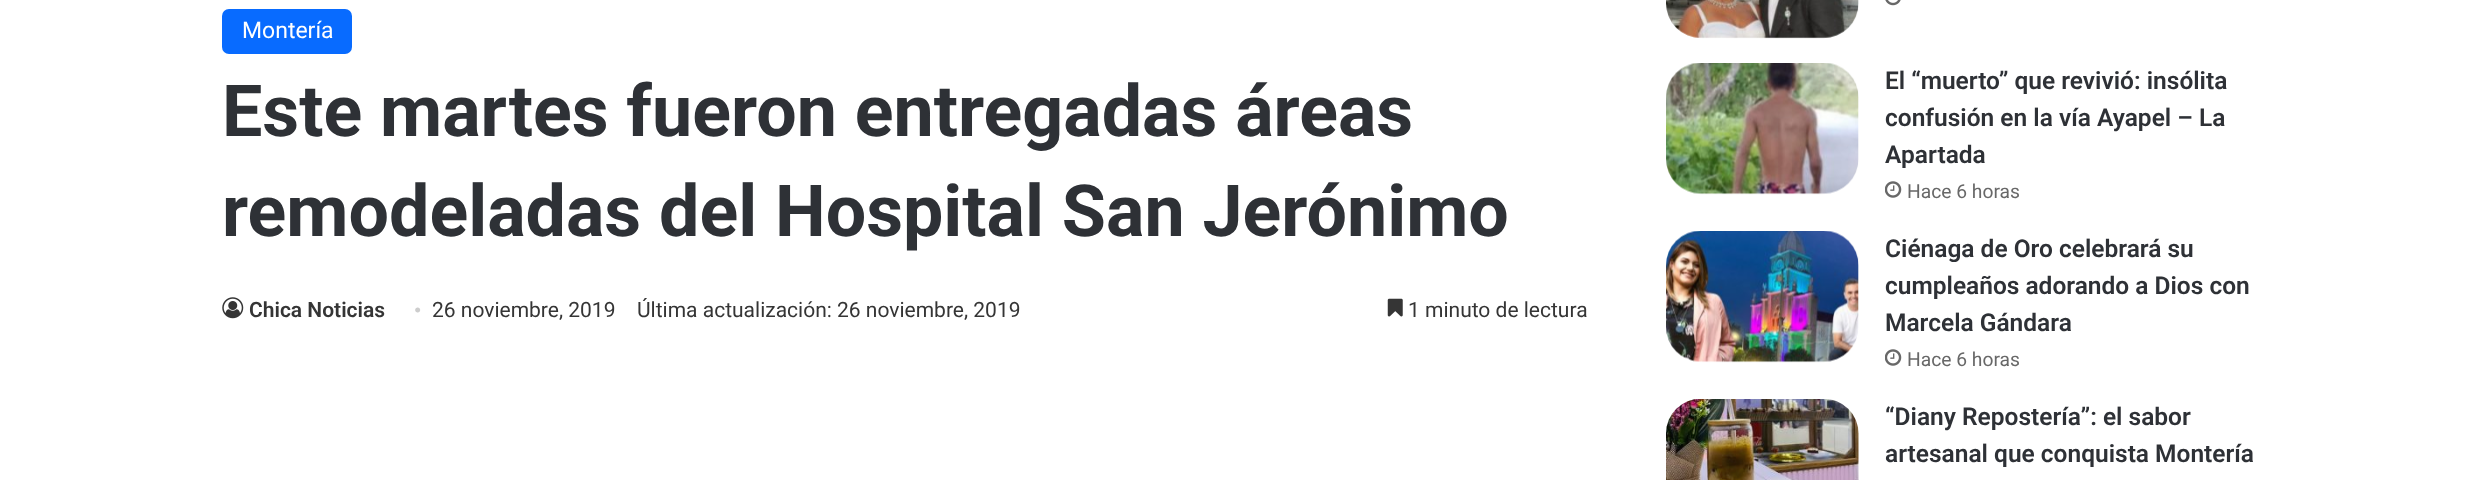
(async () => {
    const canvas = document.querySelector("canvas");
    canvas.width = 2492;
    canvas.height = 480;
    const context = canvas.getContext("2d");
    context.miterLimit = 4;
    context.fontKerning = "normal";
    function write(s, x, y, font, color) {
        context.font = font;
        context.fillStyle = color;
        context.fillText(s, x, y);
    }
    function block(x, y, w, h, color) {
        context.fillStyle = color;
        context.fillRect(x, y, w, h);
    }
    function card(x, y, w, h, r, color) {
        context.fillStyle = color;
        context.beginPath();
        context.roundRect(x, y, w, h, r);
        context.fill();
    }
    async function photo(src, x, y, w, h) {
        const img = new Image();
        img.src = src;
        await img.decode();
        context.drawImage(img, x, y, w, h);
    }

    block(0, 0, 2492, 480, "rgb(255, 255, 255)");
    card(222, 9, 130, 45, 7, "rgb(8, 107, 255)");
    write("Montería", 242, 38, "23px Roboto", "rgb(255, 255, 255)");
    write("Este martes fueron entregadas áreas", 222, 136, "bold 71.75px Roboto", "rgb(46, 49, 54)");
    write("remodeladas del Hospital San Jerónimo", 222, 236, "bold 71.75px Roboto", "rgb(46, 49, 54)");
    await photo("media/1.png", 222, 297, 22, 22);
    write("Chica Noticias", 249, 317, "600 21px Roboto", "rgb(53, 53, 53)");
    write("•", 414, 317, "21px Liberation Serif", "rgb(205, 205, 205)");
    write("26 noviembre, 2019", 432, 317, "21px Roboto", "rgb(53, 53, 53)");
    write("Última actualización: 26 noviembre, 2019", 637, 317, "21px Roboto", "rgb(53, 53, 53)");
    await photo("media/2.png", 1387, 298, 16, 19);
    write("1 minuto de lectura", 1408, 317, "21px Roboto", "rgb(53, 53, 53)");
    await photo("media/3.png", 1666, 0, 193, 39);
    await photo("media/4.png", 1885, 0, 16, 6);
    await photo("media/5.png", 1666, 63, 193, 132);
    write("El “muerto” que revivió: insólita", 1885, 89, "600 24.5px Roboto", "rgb(46, 49, 54)");
    write("confusión en la vía Ayapel – La", 1885, 126, "600 24.5px Roboto", "rgb(46, 49, 54)");
    write("Apartada", 1885, 163, "600 24.5px Roboto", "rgb(46, 49, 54)");
    await photo("media/6.png", 1885, 181, 17, 17);
    write("Hace 6 horas", 1907, 198, "19.25px Roboto", "rgb(104, 104, 104)");
    await photo("media/7.png", 1666, 231, 193, 132);
    write("Ciénaga de Oro celebrará su", 1885, 257, "600 24.5px Roboto", "rgb(46, 49, 54)");
    write("cumpleaños adorando a Dios con", 1885, 294, "600 24.5px Roboto", "rgb(46, 49, 54)");
    write("Marcela Gándara", 1885, 331, "600 24.5px Roboto", "rgb(46, 49, 54)");
    await photo("media/6.png", 1885, 349, 17, 17);
    write("Hace 6 horas", 1907, 366, "19.25px Roboto", "rgb(104, 104, 104)");
    await photo("media/8.png", 1666, 399, 193, 81);
    write("“Diany Repostería”: el sabor", 1885, 425, "600 24.5px Roboto", "rgb(46, 49, 54)");
    write("artesanal que conquista Montería", 1885, 462, "600 24.5px Roboto", "rgb(46, 49, 54)");
})();
